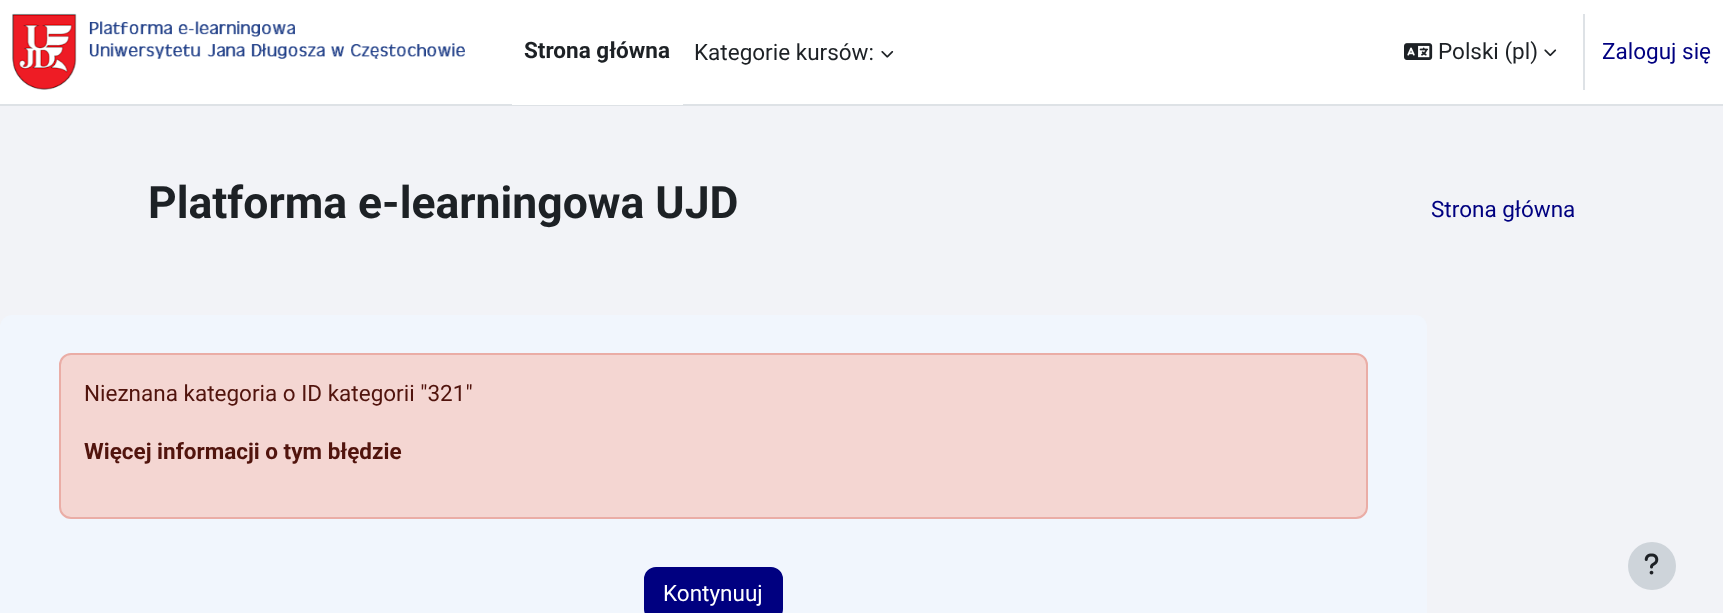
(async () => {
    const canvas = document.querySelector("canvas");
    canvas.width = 1723;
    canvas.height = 613;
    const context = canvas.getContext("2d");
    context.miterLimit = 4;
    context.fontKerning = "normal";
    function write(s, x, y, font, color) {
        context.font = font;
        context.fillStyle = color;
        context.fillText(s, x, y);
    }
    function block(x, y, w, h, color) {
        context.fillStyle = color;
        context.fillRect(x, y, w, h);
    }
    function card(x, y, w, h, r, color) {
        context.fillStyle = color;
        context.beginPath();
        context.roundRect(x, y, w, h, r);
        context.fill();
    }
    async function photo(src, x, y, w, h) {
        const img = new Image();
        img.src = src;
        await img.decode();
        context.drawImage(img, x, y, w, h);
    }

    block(0, 0, 1723, 613, "rgb(242, 243, 247)");
    block(0, 0, 1723, 104, "rgb(255, 255, 255)");
    block(0, 104, 1723, 2, "rgb(222, 226, 230)");
    await photo("media/1.png", 12, 13, 453, 77);
    block(512, 104, 171, 1, "rgb(255, 255, 255)");
    write("Strona główna", 524, 58, "bold 22.5px Roboto", "rgb(29, 33, 37)");
    write("Kategorie kursów:", 694, 60, "22.5px Roboto", "rgb(29, 33, 37)");
    await photo("media/2.png", 881, 51, 13, 7);
    await photo("media/3.png", 1404, 43, 29, 17);
    write("Polski (pl)", 1438, 59, "22.5px Roboto", "rgb(29, 33, 37)");
    await photo("media/4.png", 1544, 49, 13, 8);
    block(1583, 14, 2, 76, "rgb(222, 226, 230)");
    write("Zaloguj się", 1602, 59, "22.5px Roboto", "rgb(0, 0, 128)");
    write("Platforma e-learningowa UJD", 148, 218, "bold 44.5px Roboto", "rgb(29, 33, 37)");
    write("Strona główna", 1431, 217, "22.5px Roboto", "rgb(0, 0, 128)");
    card(0, 315, 1427, 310, 12, "rgb(241, 246, 253)");
    context.fillStyle = "rgb(244, 214, 210)";
    context.beginPath();
    context.roundRect(60, 354, 1307, 164, 11);
    context.fill();
    context.strokeStyle = "rgb(234, 173, 166)";
    context.lineWidth = 2;
    context.stroke();
    write("Nieznana kategoria o ID kategorii \"321\"", 84, 401, "22.5px Roboto", "rgb(81, 20, 13)");
    write("Więcej informacji o tym błędzie", 84, 459, "bold 22.5px Roboto", "rgb(81, 20, 13)");
    context.fillStyle = "rgb(0, 0, 128)";
    context.beginPath();
    context.roundRect(645, 568, 137, 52, 11);
    context.fill();
    context.strokeStyle = "rgb(0, 0, 128)";
    context.stroke();
    write("Kontynuuj", 663, 601, "22.5px Roboto", "rgb(255, 255, 255)");
    context.fillStyle = "rgb(206, 212, 218)";
    context.beginPath();
    context.arc(1652, 566, 24, 0, Math.PI * 2);
    context.fill();
    await photo("media/5.png", 1644, 553, 15, 22);
})();
